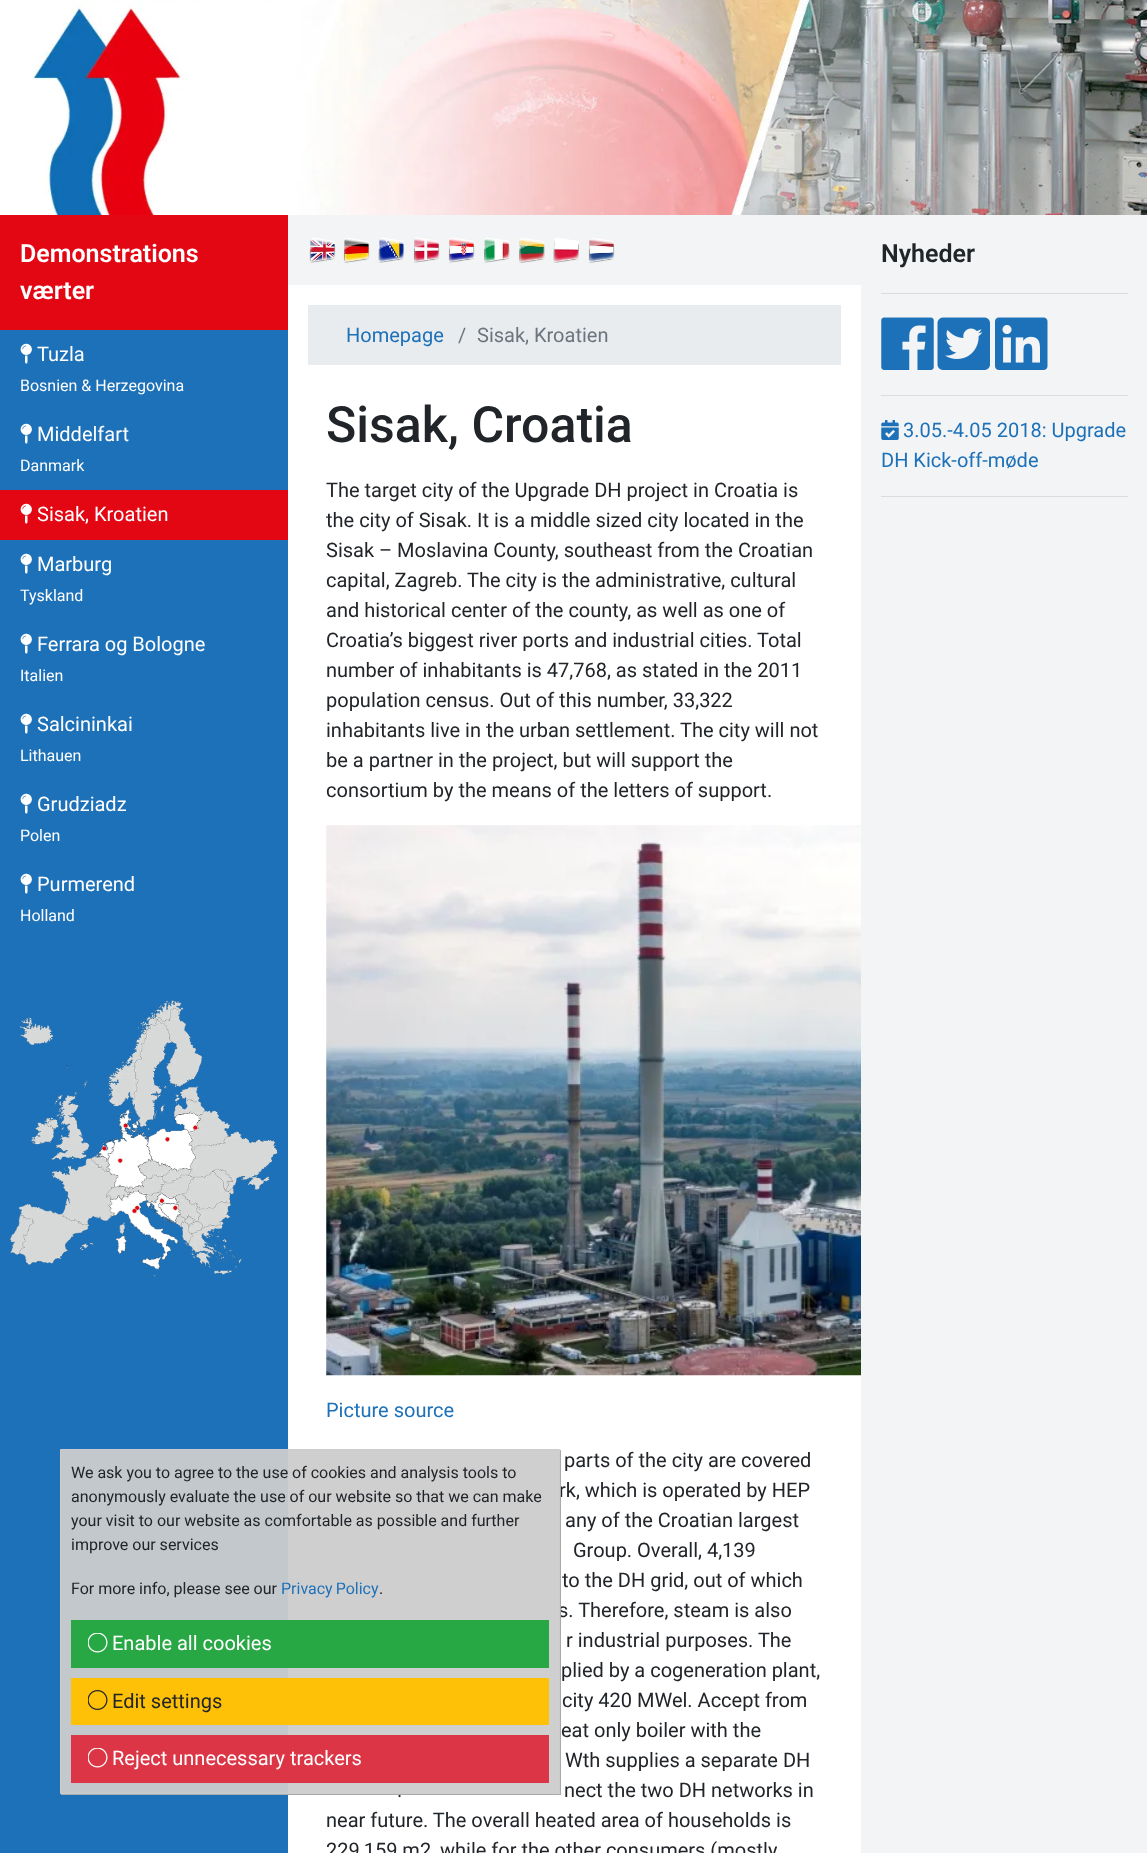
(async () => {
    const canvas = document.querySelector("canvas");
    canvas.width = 1147;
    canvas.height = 1853;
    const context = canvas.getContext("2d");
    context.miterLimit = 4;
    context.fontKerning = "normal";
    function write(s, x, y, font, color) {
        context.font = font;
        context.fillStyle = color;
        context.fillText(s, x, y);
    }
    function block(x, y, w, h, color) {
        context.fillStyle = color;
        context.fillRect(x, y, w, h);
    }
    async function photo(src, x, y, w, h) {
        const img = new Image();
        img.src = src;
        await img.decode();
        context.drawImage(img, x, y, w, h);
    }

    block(0, 0, 1147, 1853, "rgb(255, 255, 255)");
    await photo("media/1.png", 32, 0, 1115, 215);
    block(0, 330, 288, 1523, "rgb(29, 113, 184)");
    block(0, 215, 288, 115, "rgb(227, 6, 19)");
    write("Demonstrations", 20, 262, "600 25px Roboto", "rgb(255, 255, 255)");
    write("værter", 20, 299, "600 25px Roboto", "rgb(255, 255, 255)");
    await photo("media/2.png", 20, 343, 12, 21);
    write("Tuzla", 37, 361, "20px Roboto", "rgb(255, 255, 255)");
    write("Bosnien & Herzegovina", 20, 391, "16px Roboto", "rgb(255, 255, 255)");
    await photo("media/2.png", 20, 423, 12, 21);
    write("Middelfart", 37, 441, "20px Roboto", "rgb(255, 255, 255)");
    write("Danmark", 20, 471, "16px Roboto", "rgb(255, 255, 255)");
    block(0, 490, 288, 50, "rgb(227, 6, 19)");
    await photo("media/3.png", 20, 503, 12, 21);
    write("Sisak, Kroatien", 37, 521, "20px Roboto", "rgb(255, 255, 255)");
    await photo("media/2.png", 20, 553, 12, 21);
    write("Marburg", 37, 571, "20px Roboto", "rgb(255, 255, 255)");
    write("Tyskland", 20, 601, "16px Roboto", "rgb(255, 255, 255)");
    await photo("media/2.png", 20, 633, 12, 21);
    write("Ferrara og Bologne", 37, 651, "20px Roboto", "rgb(255, 255, 255)");
    write("Italien", 20, 681, "16px Roboto", "rgb(255, 255, 255)");
    await photo("media/2.png", 20, 713, 12, 21);
    write("Salcininkai", 37, 731, "20px Roboto", "rgb(255, 255, 255)");
    write("Lithauen", 20, 761, "16px Roboto", "rgb(255, 255, 255)");
    await photo("media/2.png", 20, 793, 12, 21);
    write("Grudziadz", 37, 811, "20px Roboto", "rgb(255, 255, 255)");
    write("Polen", 20, 841, "16px Roboto", "rgb(255, 255, 255)");
    await photo("media/2.png", 20, 873, 12, 21);
    write("Purmerend", 37, 891, "20px Roboto", "rgb(255, 255, 255)");
    write("Holland", 20, 921, "16px Roboto", "rgb(255, 255, 255)");
    await photo("media/4.png", 10, 1000, 268, 277);
    block(861, 215, 286, 1638, "rgb(243, 244, 245)");
    write("Nyheder", 881, 262, "600 25px Roboto", "rgb(33, 37, 41)");
    block(881, 293, 247, 1, "rgb(219, 220, 221)");
    await photo("media/5.png", 881, 317, 53, 53);
    await photo("media/6.png", 937, 317, 53, 53);
    await photo("media/7.png", 995, 317, 53, 53);
    block(881, 395, 247, 1, "rgb(219, 220, 221)");
    await photo("media/8.png", 881, 420, 18, 20);
    write("3.05.-4.05 2018: Upgrade", 903, 437, "20px Roboto", "rgb(29, 113, 184)");
    write("DH Kick-off-møde", 881, 467, "20px Roboto", "rgb(29, 113, 184)");
    block(881, 496, 247, 1, "rgb(219, 220, 221)");
    block(288, 215, 573, 70, "rgb(243, 244, 245)");
    await photo("media/9.png", 309, 237, 27, 26);
    await photo("media/10.png", 343, 238, 27, 25);
    await photo("media/11.png", 378, 237, 26, 26);
    await photo("media/12.png", 413, 237, 27, 26);
    await photo("media/13.png", 448, 237, 27, 26);
    await photo("media/14.png", 484, 237, 26, 26);
    await photo("media/15.png", 519, 238, 26, 25);
    await photo("media/16.png", 553, 238, 26, 25);
    await photo("media/17.png", 588, 238, 27, 25);
    block(308, 305, 533, 60, "rgb(233, 236, 239)");
    write("Homepage", 346, 342, "20px Roboto", "rgb(29, 113, 184)");
    write("/", 458, 342, "20px Roboto", "rgb(108, 117, 125)");
    write("Sisak, Kroatien", 477, 342, "20px Roboto", "rgb(108, 117, 125)");
    write("rk, which is operated by HEP", 559, 1497, "20px Roboto", "rgb(33, 37, 41)");
    write("s. Therefore, steam is also", 558, 1617, "20px Roboto", "rgb(33, 37, 41)");
    write(".", 397, 1797, "20px Roboto", "rgb(33, 37, 41)");
    context.fillStyle = "rgb(170, 170, 170)";
    context.beginPath();
    context.moveTo(61, 1794);
    context.lineTo(61, 1795);
    context.lineTo(561, 1795);
    context.lineTo(561, 1450);
    context.lineTo(560, 1450);
    context.lineTo(560, 1794);
    context.closePath();
    context.fill();
    context.fillStyle = "rgba(204, 204, 204, 0.95)";
    context.beginPath();
    context.rect(60.5, 1449.5, 499, 344);
    context.fill();
    context.strokeStyle = "rgb(204, 204, 204)";
    context.stroke();
    write("We ask you to agree to the use of cookies and analysis tools to", 71, 1478, "16px Roboto", "rgb(33, 37, 41)");
    write("anonymously evaluate the use of our website so that we can make", 71, 1502, "16px Roboto", "rgb(33, 37, 41)");
    write("your visit to our website as comfortable as possible and further", 71, 1526, "16px Roboto", "rgb(33, 37, 41)");
    write("improve our services", 71, 1550, "16px Roboto", "rgb(33, 37, 41)");
    write("For more info, please see our", 71, 1594, "16px Roboto", "rgb(33, 37, 41)");
    context.wordSpacing = "-1px";
    write("Privacy Policy", 281, 1594, "16px Roboto", "rgb(29, 113, 184)");
    context.wordSpacing = "0px";
    write(".", 379, 1594, "16px Roboto", "rgb(33, 37, 41)");
    block(71, 1620, 478, 48, "rgb(40, 167, 69)");
    await photo("media/18.png", 88, 1633, 20, 20);
    write("Enable all cookies", 112, 1650, "20px Roboto", "rgb(255, 255, 255)");
    block(71, 1678, 478, 47, "rgb(255, 193, 7)");
    await photo("media/19.png", 88, 1690, 20, 20);
    write("Edit settings", 112, 1708, "20px Roboto", "rgb(33, 37, 41)");
    block(71, 1735, 478, 48, "rgb(220, 53, 69)");
    await photo("media/20.png", 88, 1748, 20, 20);
    write("Reject unnecessary trackers", 112, 1765, "20px Roboto", "rgb(255, 255, 255)");
    write("Sisak, Croatia", 326, 442, "500 50px Roboto", "rgb(33, 37, 41)");
    write("The target city of the Upgrade DH project in Croatia is", 326, 497, "20px Roboto", "rgb(33, 37, 41)");
    write("the city of Sisak. It is a middle sized city located in the", 326, 527, "20px Roboto", "rgb(33, 37, 41)");
    write("Sisak – Moslavina County, southeast from the Croatian", 326, 557, "20px Roboto", "rgb(33, 37, 41)");
    write("capital, Zagreb. The city is the administrative, cultural", 326, 587, "20px Roboto", "rgb(33, 37, 41)");
    write("and historical center of the county, as well as one of", 326, 617, "20px Roboto", "rgb(33, 37, 41)");
    write("Croatia’s biggest river ports and industrial cities. Total", 326, 647, "20px Roboto", "rgb(33, 37, 41)");
    write("number of inhabitants is 47,768, as stated in the 2011", 326, 677, "20px Roboto", "rgb(33, 37, 41)");
    write("population census. Out of this number, 33,322", 326, 707, "20px Roboto", "rgb(33, 37, 41)");
    write("inhabitants live in the urban settlement. The city will not", 326, 737, "20px Roboto", "rgb(33, 37, 41)");
    write("be a partner in the project, but will support the", 326, 767, "20px Roboto", "rgb(33, 37, 41)");
    write("consortium by the means of the letters of support.", 326, 797, "20px Roboto", "rgb(33, 37, 41)");
    await photo("media/21.png", 326, 825, 535, 551);
    write("Picture source", 326, 1417, "20px Roboto", "rgb(29, 113, 184)");
    write("parts of the city are covered", 564, 1467, "20px Roboto", "rgb(33, 37, 41)");
    write("any of the Croatian largest", 565, 1527, "20px Roboto", "rgb(33, 37, 41)");
    write("Group. Overall, 4,139", 573, 1557, "20px Roboto", "rgb(33, 37, 41)");
    write("to the DH grid, out of which", 562, 1587, "20px Roboto", "rgb(33, 37, 41)");
    write("r industrial purposes. The", 566, 1647, "20px Roboto", "rgb(33, 37, 41)");
    write("plied by a cogeneration plant,", 561, 1677, "20px Roboto", "rgb(33, 37, 41)");
    write("city 420 MWel. Accept from", 562, 1707, "20px Roboto", "rgb(33, 37, 41)");
    write("eat only boiler with the", 561, 1737, "20px Roboto", "rgb(33, 37, 41)");
    write("Wth supplies a separate DH", 565, 1767, "20px Roboto", "rgb(33, 37, 41)");
    write("nect the two DH networks in", 564, 1797, "20px Roboto", "rgb(33, 37, 41)");
    write("near future. The overall heated area of households is", 326, 1827, "20px Roboto", "rgb(33, 37, 41)");
    write("229,159 m2, while for the other consumers (mostly", 326, 1857, "20px Roboto", "rgb(33, 37, 41)");
})();
